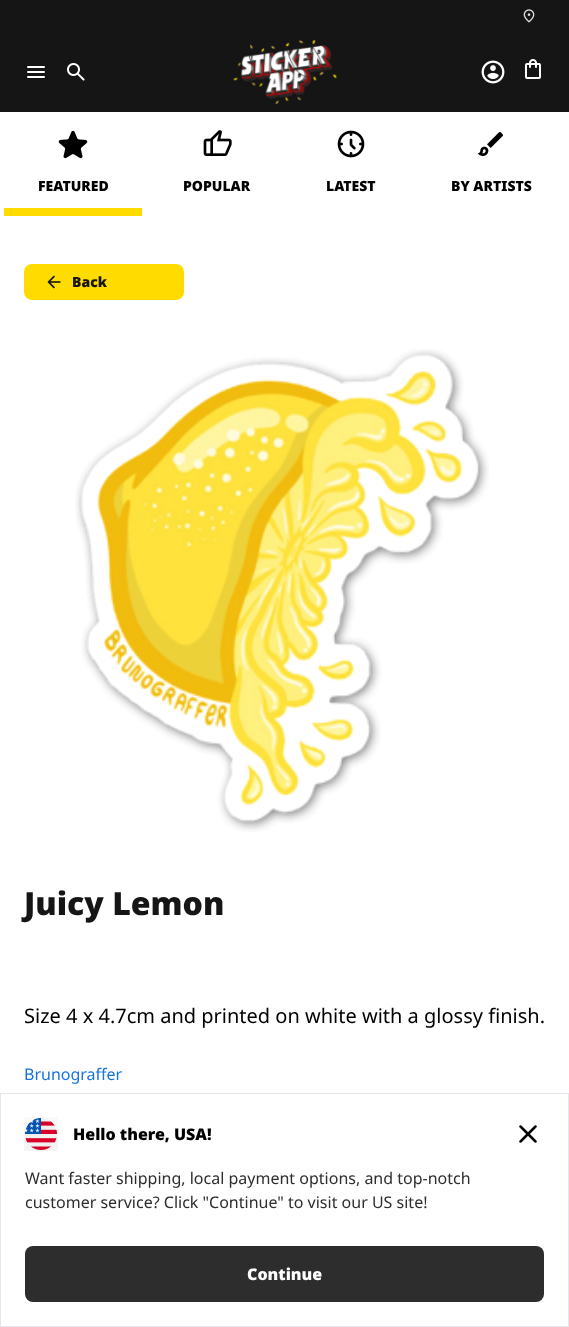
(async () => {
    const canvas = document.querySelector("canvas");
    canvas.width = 569;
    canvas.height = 1327;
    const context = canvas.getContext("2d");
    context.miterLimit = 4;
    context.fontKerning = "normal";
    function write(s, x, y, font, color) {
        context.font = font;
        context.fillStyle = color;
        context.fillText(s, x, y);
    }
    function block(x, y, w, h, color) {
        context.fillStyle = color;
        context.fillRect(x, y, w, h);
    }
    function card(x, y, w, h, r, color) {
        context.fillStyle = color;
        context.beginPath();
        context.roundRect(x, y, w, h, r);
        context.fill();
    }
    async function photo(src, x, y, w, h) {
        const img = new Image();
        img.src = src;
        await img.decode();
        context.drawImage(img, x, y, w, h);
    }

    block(0, 0, 569, 1327, "rgb(255, 255, 255)");
    block(0, 0, 569, 112, "rgb(21, 21, 21)");
    await photo("media/1.png", 523, 9, 12, 14);
    await photo("media/2.png", 27, 66, 18, 12);
    await photo("media/3.png", 67, 63, 18, 18);
    await photo("media/4.png", 233, 40, 104, 64);
    await photo("media/5.png", 481, 60, 24, 24);
    await photo("media/6.png", 525, 59, 16, 20);
    await photo("media/7.png", 58, 130, 30, 29);
    write("FEATURED", 38, 191, "900 14px Noto Sans", "rgb(0, 0, 0)");
    block(4, 208, 138, 8, "rgb(255, 219, 0)");
    await photo("media/8.png", 203, 130, 29, 26);
    write("POPULAR", 183, 191, "900 14px Noto Sans", "rgb(0, 0, 0)");
    await photo("media/9.png", 337, 130, 28, 28);
    write("LATEST", 326, 191, "900 14px Noto Sans", "rgb(0, 0, 0)");
    await photo("media/10.png", 477, 132, 26, 24);
    write("BY ARTISTS", 451, 191, "900 14px Noto Sans", "rgb(0, 0, 0)");
    card(24, 264, 160, 36, 8, "rgb(255, 219, 0)");
    await photo("media/11.png", 47, 275, 14, 14);
    write("Back", 72, 287, "900 14px Noto Sans", "rgb(21, 21, 21)");
    await photo("media/12.png", 75, 349, 414, 483);
    write("Juicy Lemon", 24, 915, "900 32px Noto Sans", "rgb(21, 21, 21)");
    write("Size 4 x 4.7cm and printed on white with a glossy finish.", 24, 1023, "20px Noto Sans", "rgb(0, 0, 0)");
    write("Brunograffer", 24, 1080, "16px Noto Sans", "rgb(21, 115, 222)");
    context.strokeStyle = "rgb(229, 231, 235)";
    context.strokeRect(0.5, 1093.5, 568, 233);
    await photo("media/13.png", 24, 1117, 34, 34);
    write("Hello there, USA!", 73, 1140, "900 16px Noto Sans", "rgb(0, 0, 0)");
    await photo("media/14.png", 519, 1125, 18, 18);
    write("Want faster shipping, local payment options, and top-notch", 25, 1184, "16px Noto Sans", "rgb(45, 45, 45)");
    write("customer service? Click \"Continue\" to visit our US site!", 25, 1208, "16px Noto Sans", "rgb(45, 45, 45)");
    card(25, 1246, 519, 56, 8, "rgb(45, 45, 45)");
    write("Continue", 247, 1280, "900 16px Noto Sans", "rgb(255, 255, 255)");
})();
